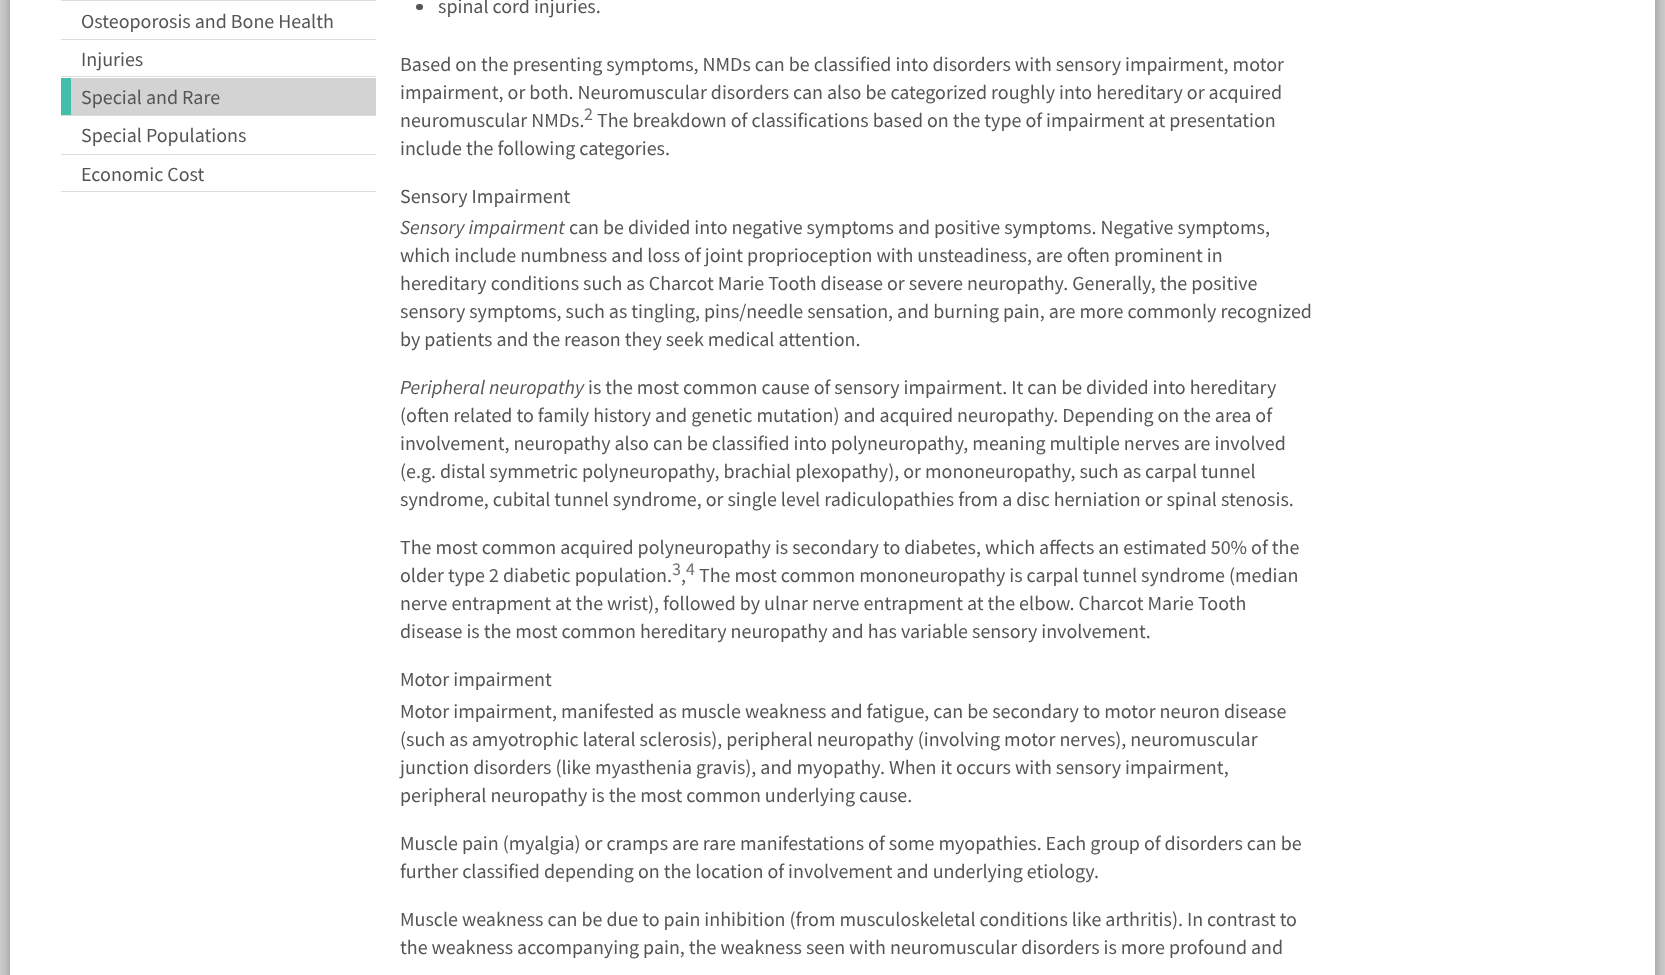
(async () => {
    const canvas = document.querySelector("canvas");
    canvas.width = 1665;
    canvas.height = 975;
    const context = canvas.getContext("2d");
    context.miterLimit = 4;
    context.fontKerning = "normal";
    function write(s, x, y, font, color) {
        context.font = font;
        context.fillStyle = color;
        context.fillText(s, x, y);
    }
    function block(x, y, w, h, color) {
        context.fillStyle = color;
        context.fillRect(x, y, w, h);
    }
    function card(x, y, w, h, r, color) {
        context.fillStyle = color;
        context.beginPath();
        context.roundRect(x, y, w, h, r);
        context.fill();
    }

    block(0, 0, 1665, 975, "rgb(211, 211, 211)");
    context.fillStyle = "rgb(136, 136, 136)";
    context.filter = "blur(8px)";
    context.beginPath();
    context.rect(10, -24, 1645, 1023);
    context.fill();
    context.filter = "none";
    block(10, 0, 1645, 975, "rgb(255, 255, 255)");
    block(61, 0, 315, 1, "rgb(221, 221, 221)");
    block(61, 39, 315, 1, "rgb(221, 221, 221)");
    write("Osteoporosis and Bone Health", 81, 28, "20px Source Sans Pro", "rgb(85, 85, 85)");
    block(61, 76, 315, 1, "rgb(221, 221, 221)");
    write("Injuries", 81, 66, "20px Source Sans Pro", "rgb(85, 85, 85)");
    block(61, 115, 315, 1, "rgb(221, 221, 221)");
    block(71, 78, 305, 37, "rgb(211, 211, 211)");
    block(61, 78, 10, 37, "rgb(67, 190, 171)");
    write("Special and Rare", 81, 104, "20px Source Sans Pro", "rgb(85, 85, 85)");
    block(61, 154, 315, 1, "rgb(221, 221, 221)");
    write("Special Populations", 81, 142, "20px Source Sans Pro", "rgb(85, 85, 85)");
    block(61, 191, 315, 1, "rgb(221, 221, 221)");
    write("Economic Cost", 81, 181, "20px Source Sans Pro", "rgb(85, 85, 85)");
    card(416, 4, 7, 6, 3, "rgb(85, 85, 85)");
    write("spinal cord injuries.", 438, 13, "20px Source Sans Pro", "rgb(85, 85, 85)");
    write("Based on the presenting symptoms, NMDs can be classified into disorders with sensory impairment, motor", 400, 71, "20px Source Sans Pro", "rgb(85, 85, 85)");
    write("impairment, or both. Neuromuscular disorders can also be categorized roughly into hereditary or acquired", 400, 99, "20px Source Sans Pro", "rgb(85, 85, 85)");
    write("neuromuscular NMDs.", 400, 127, "20px Source Sans Pro", "rgb(85, 85, 85)");
    write("2", 584, 120, "18px Source Sans Pro", "rgb(110, 111, 110)");
    write("The breakdown of classifications based on the type of impairment at presentation", 597, 127, "20px Source Sans Pro", "rgb(85, 85, 85)");
    write("include the following categories.", 400, 155, "20px Source Sans Pro", "rgb(85, 85, 85)");
    write("Sensory Impairment", 400, 203, "20px Source Sans Pro", "rgb(85, 85, 85)");
    write("Sensory impairment", 400, 234, "italic 20px Source Sans Pro", "rgb(85, 85, 85)");
    write("can be divided into negative symptoms and positive symptoms. Negative symptoms,", 569, 234, "20px Source Sans Pro", "rgb(85, 85, 85)");
    write("which include numbness and loss of joint proprioception with unsteadiness, are often prominent in", 400, 262, "20px Source Sans Pro", "rgb(85, 85, 85)");
    write("hereditary conditions such as Charcot Marie Tooth disease or severe neuropathy. Generally, the positive", 400, 290, "20px Source Sans Pro", "rgb(85, 85, 85)");
    write("sensory symptoms, such as tingling, pins/needle sensation, and burning pain, are more commonly recognized", 400, 318, "20px Source Sans Pro", "rgb(85, 85, 85)");
    write("by patients and the reason they seek medical attention.", 400, 346, "20px Source Sans Pro", "rgb(85, 85, 85)");
    write("Peripheral neuropathy", 400, 394, "italic 20px Source Sans Pro", "rgb(85, 85, 85)");
    write("is the most common cause of sensory impairment. It can be divided into hereditary", 588, 394, "20px Source Sans Pro", "rgb(85, 85, 85)");
    write("(often related to family history and genetic mutation) and acquired neuropathy. Depending on the area of", 400, 422, "20px Source Sans Pro", "rgb(85, 85, 85)");
    write("involvement, neuropathy also can be classified into polyneuropathy, meaning multiple nerves are involved", 400, 450, "20px Source Sans Pro", "rgb(85, 85, 85)");
    write("(e.g. distal symmetric polyneuropathy, brachial plexopathy), or mononeuropathy, such as carpal tunnel", 400, 478, "20px Source Sans Pro", "rgb(85, 85, 85)");
    write("syndrome, cubital tunnel syndrome, or single level radiculopathies from a disc herniation or spinal stenosis.", 400, 506, "20px Source Sans Pro", "rgb(85, 85, 85)");
    write("The most common acquired polyneuropathy is secondary to diabetes, which affects an estimated 50% of the", 400, 554, "20px Source Sans Pro", "rgb(85, 85, 85)");
    write("older type 2 diabetic population.", 400, 582, "20px Source Sans Pro", "rgb(85, 85, 85)");
    write("3", 672, 575, "18px Source Sans Pro", "rgb(110, 111, 110)");
    write(",", 681, 582, "20px Source Sans Pro", "rgb(85, 85, 85)");
    write("4", 686, 575, "18px Source Sans Pro", "rgb(110, 111, 110)");
    write("The most common mononeuropathy is carpal tunnel syndrome (median", 699, 582, "20px Source Sans Pro", "rgb(85, 85, 85)");
    write("nerve entrapment at the wrist), followed by ulnar nerve entrapment at the elbow. Charcot Marie Tooth", 400, 610, "20px Source Sans Pro", "rgb(85, 85, 85)");
    write("disease is the most common hereditary neuropathy and has variable sensory involvement.", 400, 638, "20px Source Sans Pro", "rgb(85, 85, 85)");
    write("Motor impairment", 400, 686, "20px Source Sans Pro", "rgb(85, 85, 85)");
    write("Motor impairment, manifested as muscle weakness and fatigue, can be secondary to motor neuron disease", 400, 718, "20px Source Sans Pro", "rgb(85, 85, 85)");
    write("(such as amyotrophic lateral sclerosis), peripheral neuropathy (involving motor nerves), neuromuscular", 400, 746, "20px Source Sans Pro", "rgb(85, 85, 85)");
    write("junction disorders (like myasthenia gravis), and myopathy. When it occurs with sensory impairment,", 400, 774, "20px Source Sans Pro", "rgb(85, 85, 85)");
    write("peripheral neuropathy is the most common underlying cause.", 400, 802, "20px Source Sans Pro", "rgb(85, 85, 85)");
    write("Muscle pain (myalgia) or cramps are rare manifestations of some myopathies. Each group of disorders can be", 400, 850, "20px Source Sans Pro", "rgb(85, 85, 85)");
    write("further classified depending on the location of involvement and underlying etiology.", 400, 878, "20px Source Sans Pro", "rgb(85, 85, 85)");
    write("Muscle weakness can be due to pain inhibition (from musculoskeletal conditions like arthritis). In contrast to", 400, 926, "20px Source Sans Pro", "rgb(85, 85, 85)");
    write("the weakness accompanying pain, the weakness seen with neuromuscular disorders is more profound and", 400, 954, "20px Source Sans Pro", "rgb(85, 85, 85)");
})();
